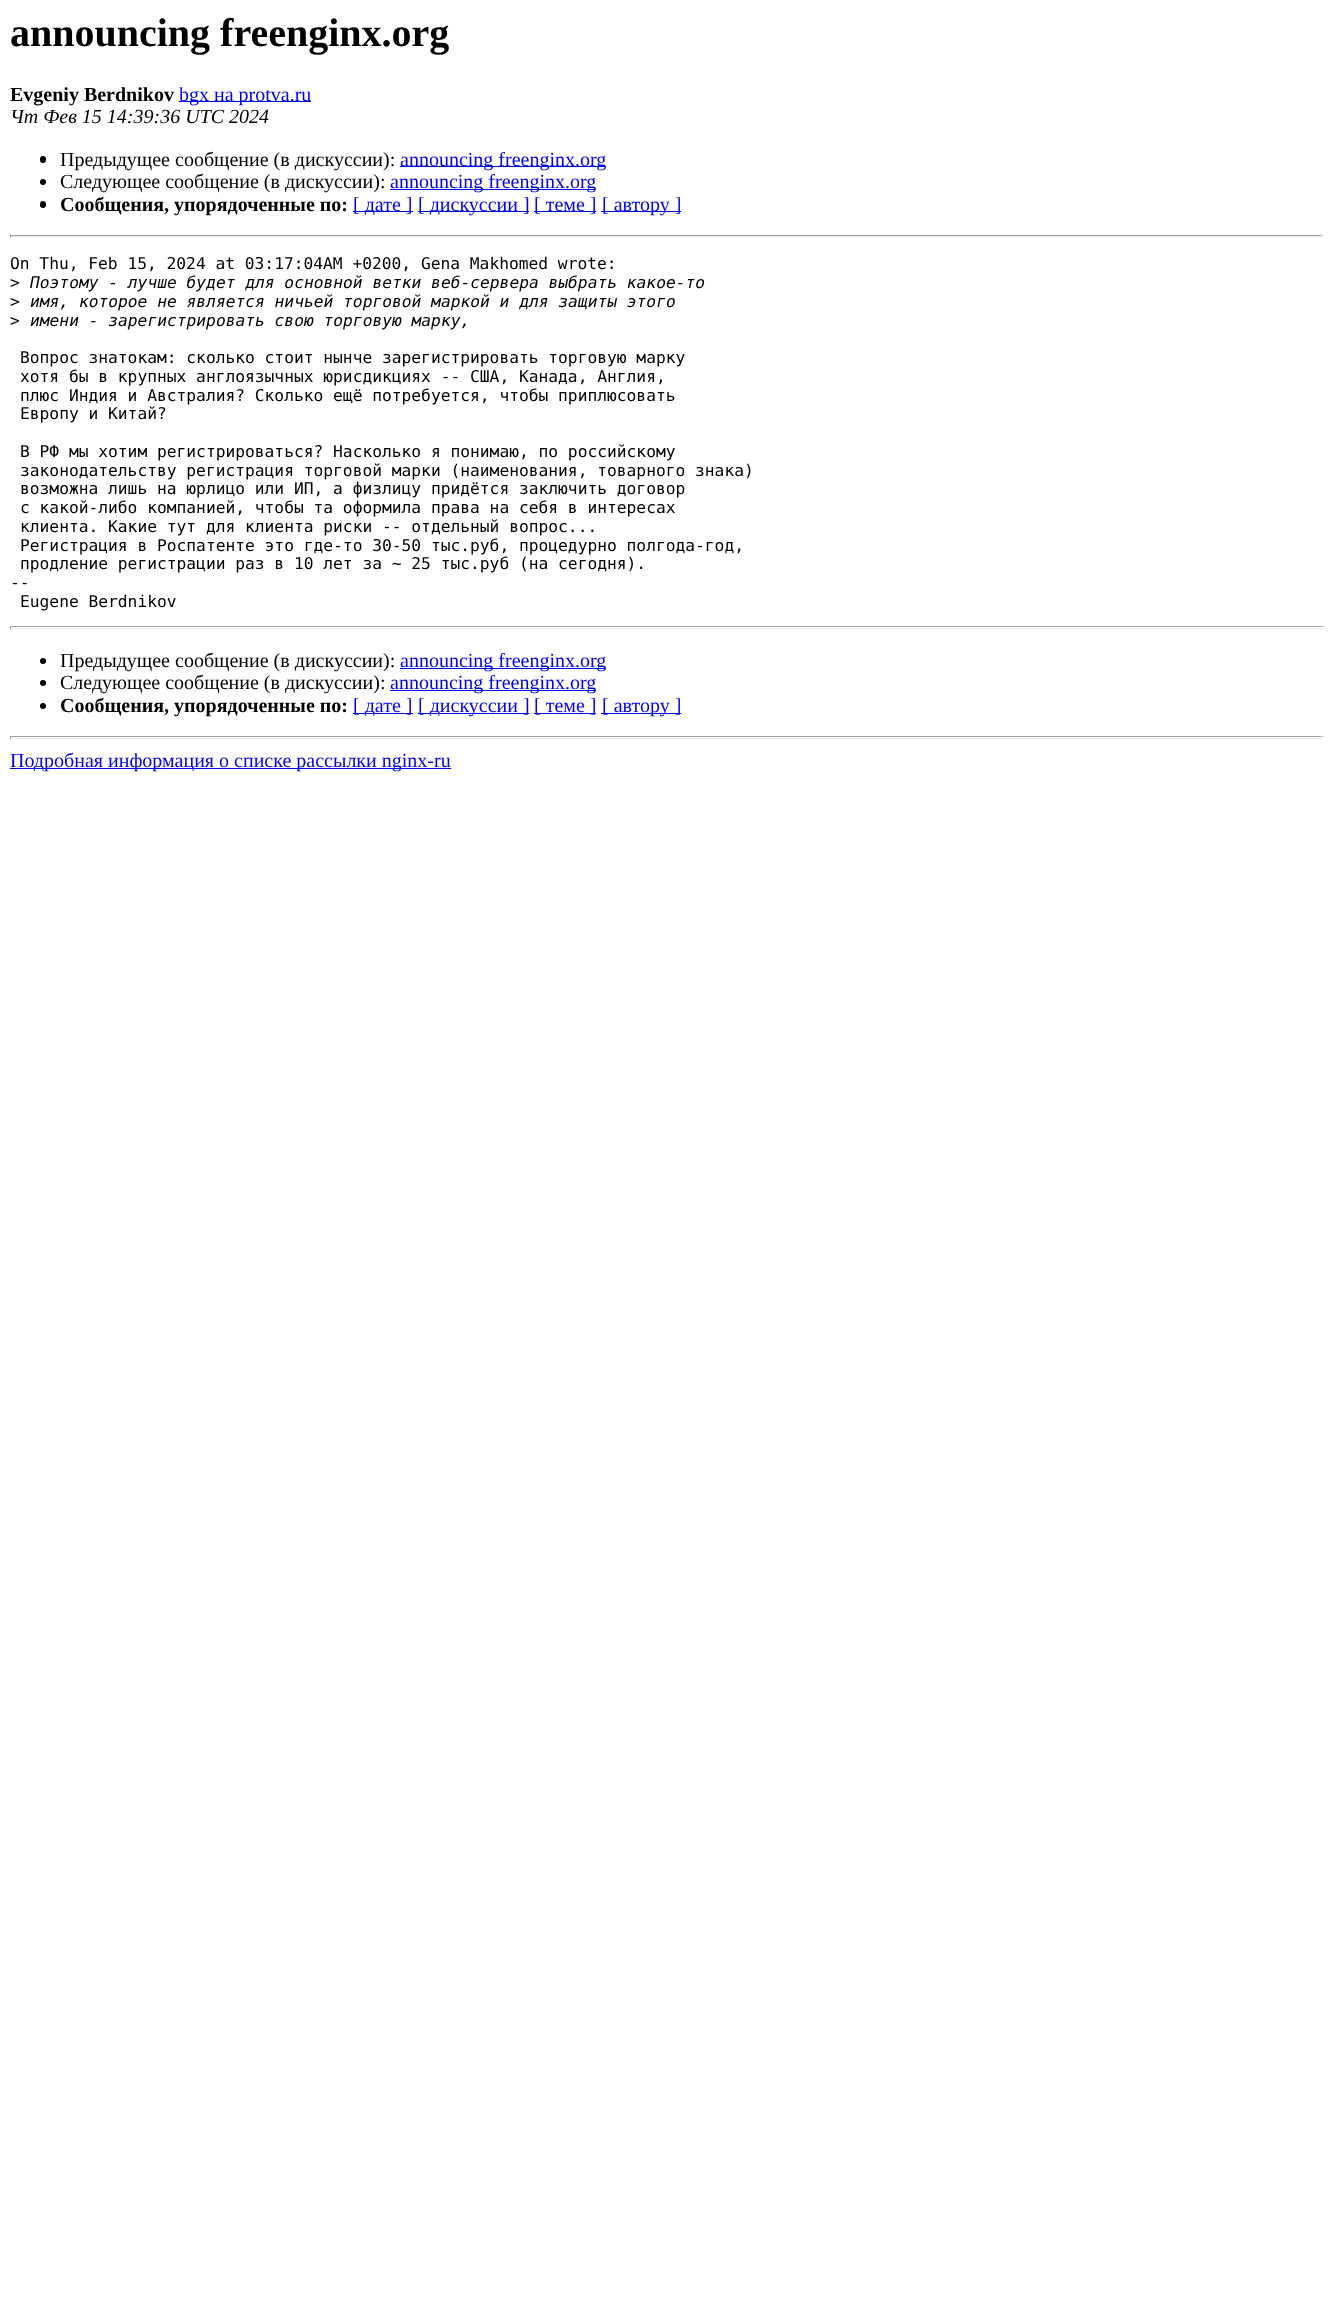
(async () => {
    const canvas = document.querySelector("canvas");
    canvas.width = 1332;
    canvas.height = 2302;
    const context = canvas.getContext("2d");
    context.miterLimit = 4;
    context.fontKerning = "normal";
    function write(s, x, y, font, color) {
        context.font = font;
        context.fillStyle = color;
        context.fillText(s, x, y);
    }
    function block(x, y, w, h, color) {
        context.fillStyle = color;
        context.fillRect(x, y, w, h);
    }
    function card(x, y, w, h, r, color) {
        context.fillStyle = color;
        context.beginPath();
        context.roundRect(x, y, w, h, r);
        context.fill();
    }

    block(0, 0, 1332, 2302, "rgb(255, 255, 255)");
    write("announcing freenginx.org", 10, 46, "bold 40px Liberation Serif", "rgb(0, 0, 0)");
    write("Evgeniy Berdnikov", 10, 101, "bold 20px Liberation Serif", "rgb(0, 0, 0)");
    block(179, 101, 132, 1, "rgb(0, 0, 238)");
    write("bgx на protva.ru", 179, 101, "20px Liberation Serif", "rgb(0, 0, 238)");
    write("Чт Фев 15 14:39:36 UTC 2024", 10, 123, "italic 20px Liberation Serif", "rgb(0, 0, 0)");
    card(40, 156, 6, 7, 3, "rgb(0, 0, 0)");
    write("Предыдущее сообщение (в дискуссии):", 60, 166, "20px Liberation Serif", "rgb(0, 0, 0)");
    block(400, 166, 206, 1, "rgb(0, 0, 238)");
    write("announcing freenginx.org", 400, 166, "20px Liberation Serif", "rgb(0, 0, 238)");
    context.fillStyle = "rgb(0, 0, 0)";
    context.beginPath();
    context.arc(43, 182, 3, 0, Math.PI * 2);
    context.fill();
    write("Следующее сообщение (в дискуссии):", 60, 188, "20px Liberation Serif", "rgb(0, 0, 0)");
    block(390, 189, 206, 1, "rgb(0, 0, 238)");
    write("announcing freenginx.org", 390, 188, "20px Liberation Serif", "rgb(0, 0, 238)");
    card(40, 201, 6, 7, 3, "rgb(0, 0, 0)");
    write("Сообщения, упорядоченные по:", 60, 211, "bold 20px Liberation Serif", "rgb(0, 0, 0)");
    block(353, 211, 60, 1, "rgb(0, 0, 238)");
    write("[ дате ]", 353, 211, "20px Liberation Serif", "rgb(0, 0, 238)");
    block(418, 211, 111, 1, "rgb(0, 0, 238)");
    write("[ дискуссии ]", 418, 211, "20px Liberation Serif", "rgb(0, 0, 238)");
    block(534, 211, 62, 1, "rgb(0, 0, 238)");
    write("[ теме ]", 534, 211, "20px Liberation Serif", "rgb(0, 0, 238)");
    block(601, 211, 80, 1, "rgb(0, 0, 238)");
    write("[ автору ]", 602, 211, "20px Liberation Serif", "rgb(0, 0, 238)");
    block(10, 235, 1313, 1, "rgb(159, 159, 159)");
    block(1321, 235, 1, 3, "rgb(238, 238, 238)");
    block(10, 236, 1313, 1, "rgb(238, 238, 238)");
    block(10, 235, 1, 3, "rgb(159, 159, 159)");
    write("On Thu, Feb 15, 2024 at 03:17:04AM +0200, Gena Makhomed wrote:", 10, 269, "16.25px DejaVu Sans Mono", "rgb(0, 0, 0)");
    write(">", 10, 288, "16.25px DejaVu Sans Mono", "rgb(0, 0, 0)");
    write("Поэтому - лучше будет для основной ветки веб-сервера выбрать какое-то", 30, 288, "italic 16.25px DejaVu Sans Mono", "rgb(0, 0, 0)");
    write(">", 10, 307, "16.25px DejaVu Sans Mono", "rgb(0, 0, 0)");
    write("имя, которое не является ничьей торговой маркой и для защиты этого", 30, 307, "italic 16.25px DejaVu Sans Mono", "rgb(0, 0, 0)");
    write(">", 10, 326, "16.25px DejaVu Sans Mono", "rgb(0, 0, 0)");
    write("имени - зарегистрировать свою торговую марку,", 30, 326, "italic 16.25px DejaVu Sans Mono", "rgb(0, 0, 0)");
    write("Вопрос знатокам: сколько стоит нынче зарегистрировать торговую марку", 20, 363, "16.25px DejaVu Sans Mono", "rgb(0, 0, 0)");
    write("хотя бы в крупных англоязычных юрисдикциях -- США, Канада, Англия,", 20, 382, "16.25px DejaVu Sans Mono", "rgb(0, 0, 0)");
    write("плюс Индия и Австралия? Сколько ещё потребуется, чтобы приплюсовать", 20, 401, "16.25px DejaVu Sans Mono", "rgb(0, 0, 0)");
    write("Европу и Китай?", 20, 419, "16.25px DejaVu Sans Mono", "rgb(0, 0, 0)");
    write("В РФ мы хотим регистрироваться? Насколько я понимаю, по российскому", 20, 457, "16.25px DejaVu Sans Mono", "rgb(0, 0, 0)");
    write("законодательству регистрация торговой марки (наименования, товарного знака)", 20, 476, "16.25px DejaVu Sans Mono", "rgb(0, 0, 0)");
    write("возможна лишь на юрлицо или ИП, а физлицу придётся заключить договор", 20, 494, "16.25px DejaVu Sans Mono", "rgb(0, 0, 0)");
    write("с какой-либо компанией, чтобы та оформила права на себя в интересах", 20, 513, "16.25px DejaVu Sans Mono", "rgb(0, 0, 0)");
    write("клиента. Какие тут для клиента риски -- отдельный вопрос...", 20, 532, "16.25px DejaVu Sans Mono", "rgb(0, 0, 0)");
    write("Регистрация в Роспатенте это где-то 30-50 тыс.руб, процедурно полгода-год,", 20, 551, "16.25px DejaVu Sans Mono", "rgb(0, 0, 0)");
    write("продление регистрации раз в 10 лет за ~ 25 тыс.руб (на сегодня).", 20, 569, "16.25px DejaVu Sans Mono", "rgb(0, 0, 0)");
    write("--", 10, 588, "16.25px DejaVu Sans Mono", "rgb(0, 0, 0)");
    write("Eugene Berdnikov", 20, 607, "16.25px DejaVu Sans Mono", "rgb(0, 0, 0)");
    block(10, 626, 1313, 1, "rgb(159, 159, 159)");
    block(1321, 626, 1, 3, "rgb(238, 238, 238)");
    block(10, 628, 1313, 1, "rgb(238, 238, 238)");
    block(10, 626, 1, 3, "rgb(159, 159, 159)");
    context.fillStyle = "rgb(0, 0, 0)";
    context.beginPath();
    context.arc(43, 661, 3, 0, Math.PI * 2);
    context.fill();
    write("Предыдущее сообщение (в дискуссии):", 60, 667, "20px Liberation Serif", "rgb(0, 0, 0)");
    block(400, 668, 206, 1, "rgb(0, 0, 238)");
    write("announcing freenginx.org", 400, 667, "20px Liberation Serif", "rgb(0, 0, 238)");
    context.fillStyle = "rgb(0, 0, 0)";
    context.beginPath();
    context.arc(43, 683, 3, 0, Math.PI * 2);
    context.fill();
    write("Следующее сообщение (в дискуссии):", 60, 689, "20px Liberation Serif", "rgb(0, 0, 0)");
    block(390, 690, 206, 1, "rgb(0, 0, 238)");
    write("announcing freenginx.org", 390, 689, "20px Liberation Serif", "rgb(0, 0, 238)");
    context.fillStyle = "rgb(0, 0, 0)";
    context.beginPath();
    context.arc(43, 706, 3, 0, Math.PI * 2);
    context.fill();
    write("Сообщения, упорядоченные по:", 60, 712, "bold 20px Liberation Serif", "rgb(0, 0, 0)");
    block(353, 713, 60, 1, "rgb(0, 0, 238)");
    write("[ дате ]", 353, 712, "20px Liberation Serif", "rgb(0, 0, 238)");
    block(418, 713, 111, 1, "rgb(0, 0, 238)");
    write("[ дискуссии ]", 418, 712, "20px Liberation Serif", "rgb(0, 0, 238)");
    block(534, 713, 62, 1, "rgb(0, 0, 238)");
    write("[ теме ]", 534, 712, "20px Liberation Serif", "rgb(0, 0, 238)");
    block(601, 713, 80, 1, "rgb(0, 0, 238)");
    write("[ автору ]", 602, 712, "20px Liberation Serif", "rgb(0, 0, 238)");
    block(10, 736, 1313, 1, "rgb(159, 159, 159)");
    block(1321, 736, 1, 3, "rgb(238, 238, 238)");
    block(10, 738, 1313, 1, "rgb(238, 238, 238)");
    block(10, 736, 1, 3, "rgb(159, 159, 159)");
    block(10, 768, 441, 1, "rgb(0, 0, 238)");
    write("Подробная информация о списке рассылки nginx-ru", 10, 767, "20px Liberation Serif", "rgb(0, 0, 238)");
})();
